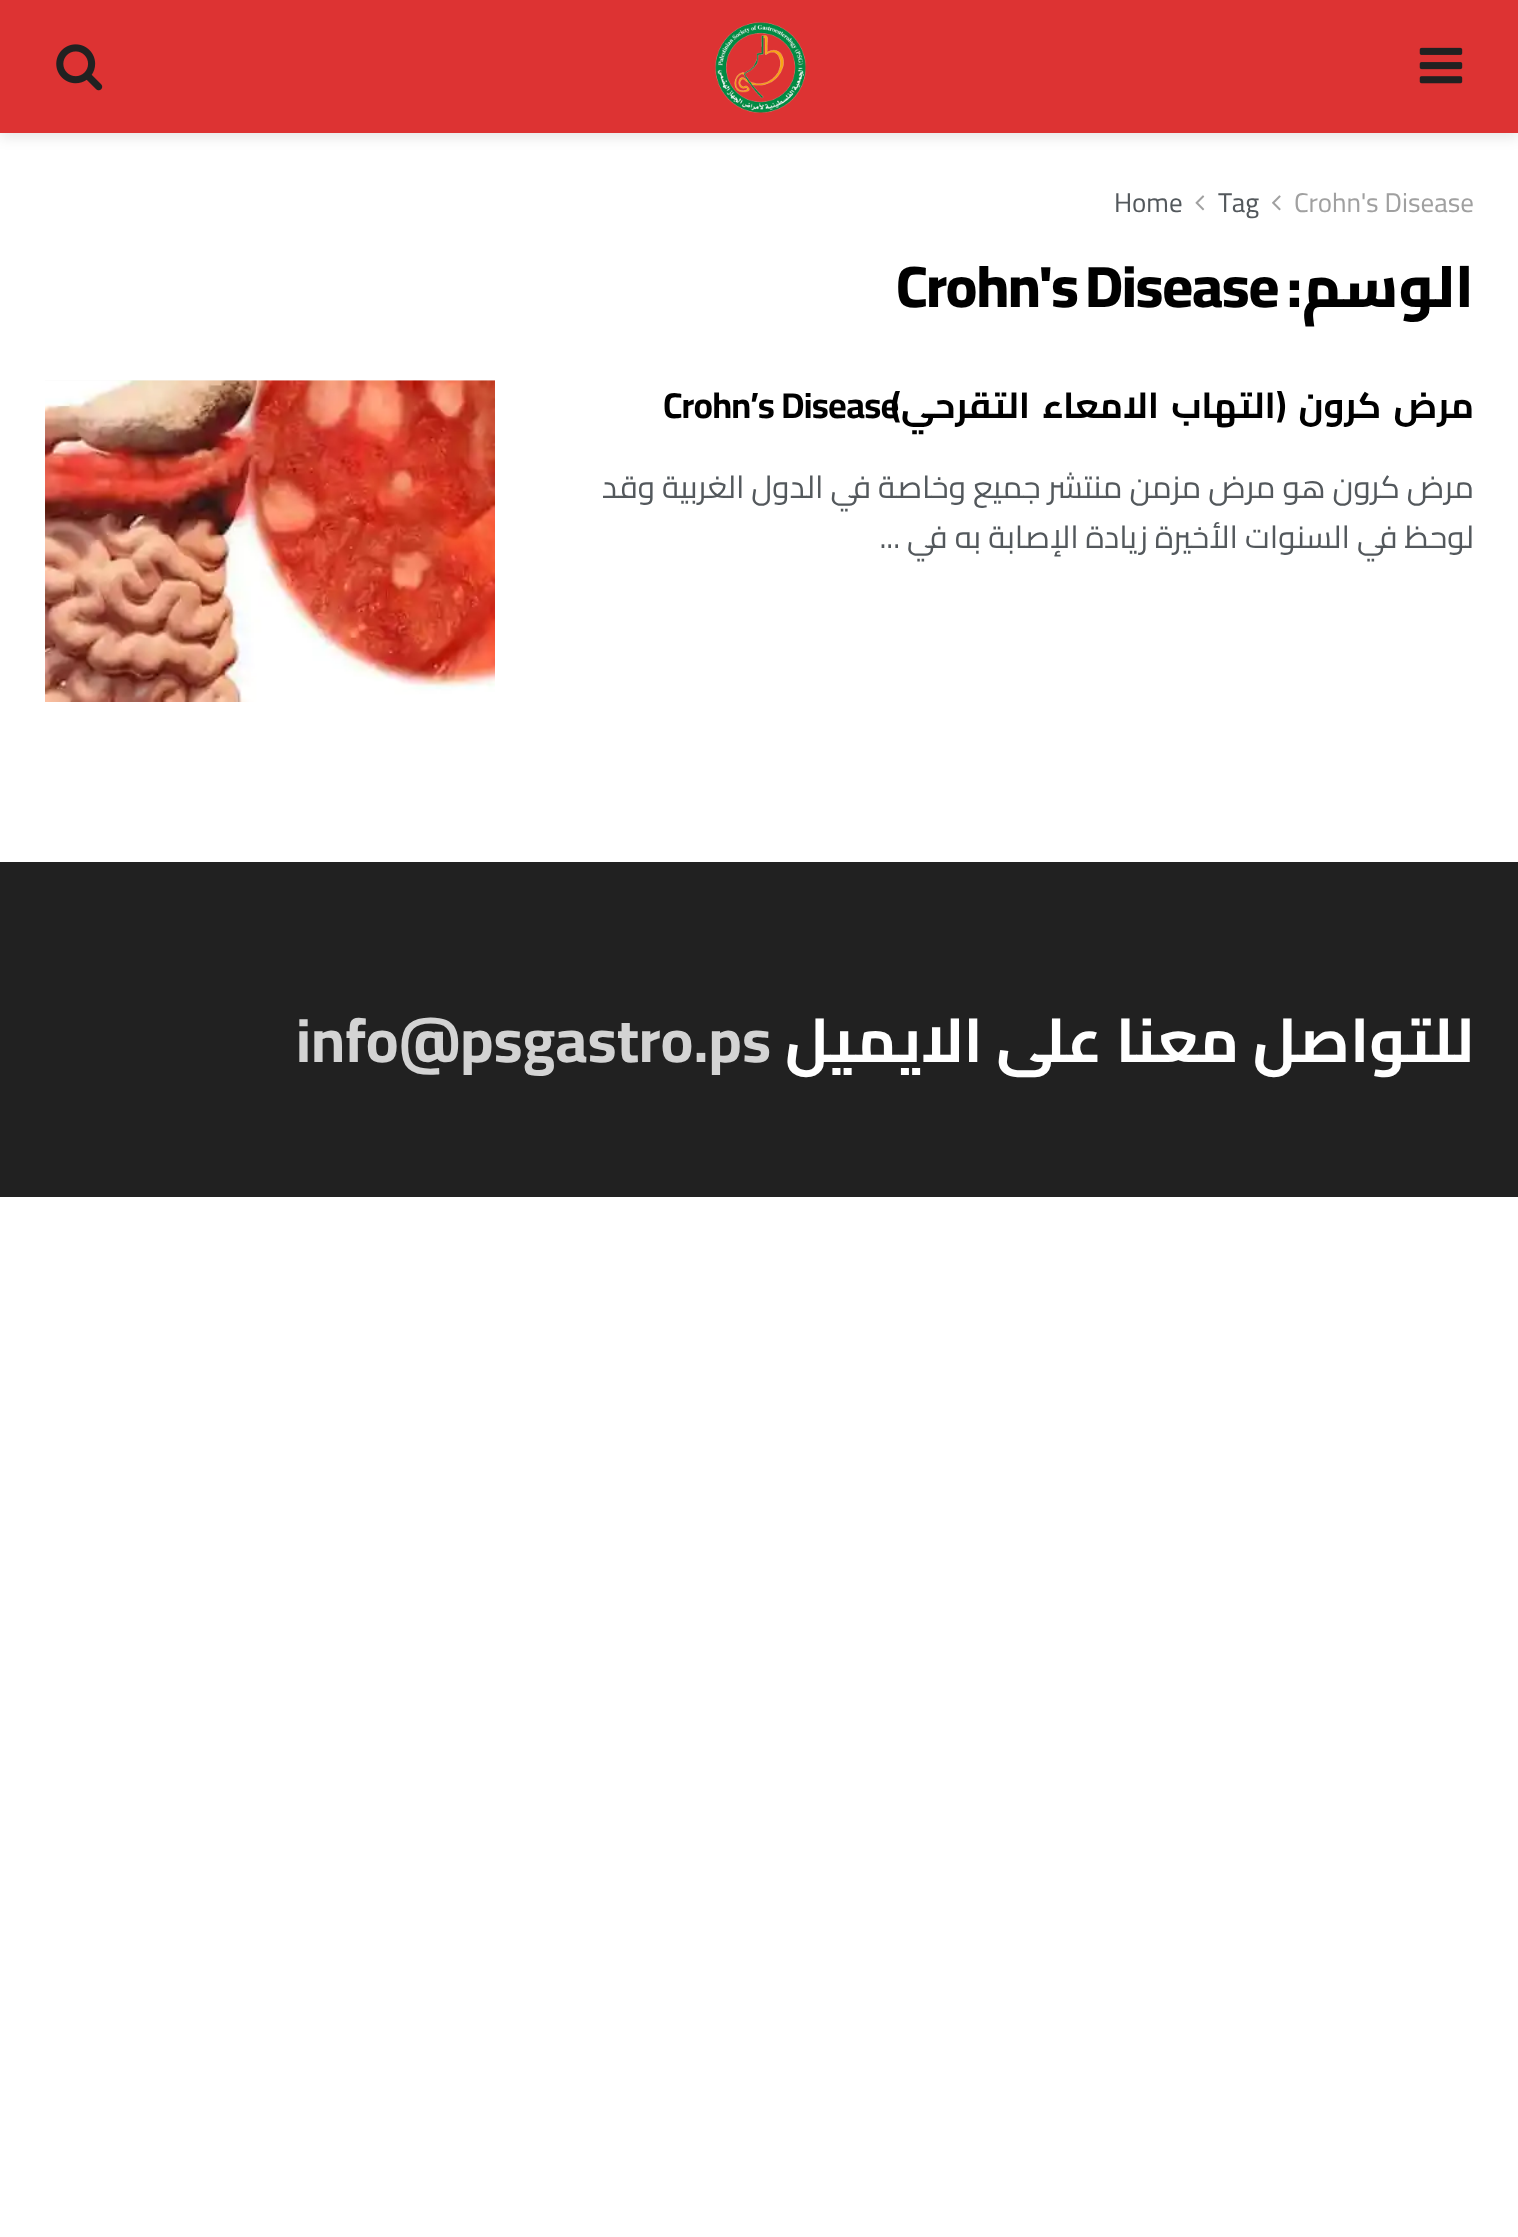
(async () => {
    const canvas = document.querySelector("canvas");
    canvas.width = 1518;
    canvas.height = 2237;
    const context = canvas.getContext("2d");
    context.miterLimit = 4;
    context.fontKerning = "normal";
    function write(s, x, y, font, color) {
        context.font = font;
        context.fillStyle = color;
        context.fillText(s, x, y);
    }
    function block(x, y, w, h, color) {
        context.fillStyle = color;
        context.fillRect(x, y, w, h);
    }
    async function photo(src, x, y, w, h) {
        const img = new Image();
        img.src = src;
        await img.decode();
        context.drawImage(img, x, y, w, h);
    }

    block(0, 0, 1518, 2237, "rgb(255, 255, 255)");
    context.fillStyle = "rgba(0, 0, 0, 0.1)";
    context.filter = "blur(7px)";
    context.beginPath();
    context.rect(0, 5, 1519, 132);
    context.fill();
    context.filter = "none";
    block(0, 0, 1518, 133, "rgb(221, 51, 51)");
    await photo("media/1.png", 1419, 47, 44, 37);
    await photo("media/2.png", 715, 22, 91, 91);
    await photo("media/3.png", 56, 44, 47, 47);
    write("Crohn's Disease", 1294, 212, "27px Cairo", "rgb(160, 160, 160)");
    await photo("media/4.png", 1272, 195, 9, 16);
    write("Tag", 1218, 212, "27px Cairo", "rgb(83, 88, 92)");
    await photo("media/5.png", 1195, 195, 10, 16);
    write("Home", 1114, 212, "27px Cairo", "rgb(83, 88, 92)");
    context.letterSpacing = "-1.2px";
    context.direction = "rtl";
    write("الوسم:", 1474, 307, "800 58.5px Cairo", "rgb(0, 0, 0)");
    context.wordSpacing = "-4px";
    context.direction = "ltr";
    write("Crohn's Disease", 896, 307, "800 58.5px Cairo", "rgb(0, 0, 0)");
    context.letterSpacing = "-0.75px";
    context.wordSpacing = "5px";
    context.direction = "rtl";
    write("مرض كرون (التهاب الامعاء التقرحي)", 1474, 418, "bold 36px Cairo", "rgb(0, 0, 0)");
    context.wordSpacing = "0px";
    context.direction = "ltr";
    write("Crohn’s Disease", 663, 418, "bold 36px Cairo", "rgb(0, 0, 0)");
    context.letterSpacing = "0px";
    context.direction = "rtl";
    write("مرض كرون هو مرض مزمن منتشر جميع وخاصة في الدول الغربية وقد", 1474, 498, "31.5px Cairo", "rgb(83, 88, 92)");
    write("لوحظ في السنوات الأخيرة زيادة الإصابة به في ...", 1474, 548, "31.5px Cairo", "rgb(83, 88, 92)");
    block(45, 380, 450, 1, "rgb(247, 247, 247)");
    await photo("media/6.png", 45, 380, 450, 322);
    block(0, 862, 1518, 335, "rgb(33, 33, 33)");
    write("للتواصل معنا على الايميل", 1474, 1062, "bold 61.5px Cairo", "rgb(255, 255, 255)");
    context.direction = "ltr";
    write("info@psgastro.ps", 296, 1062, "bold 61.5px Cairo", "rgb(211, 211, 211)");
})();
